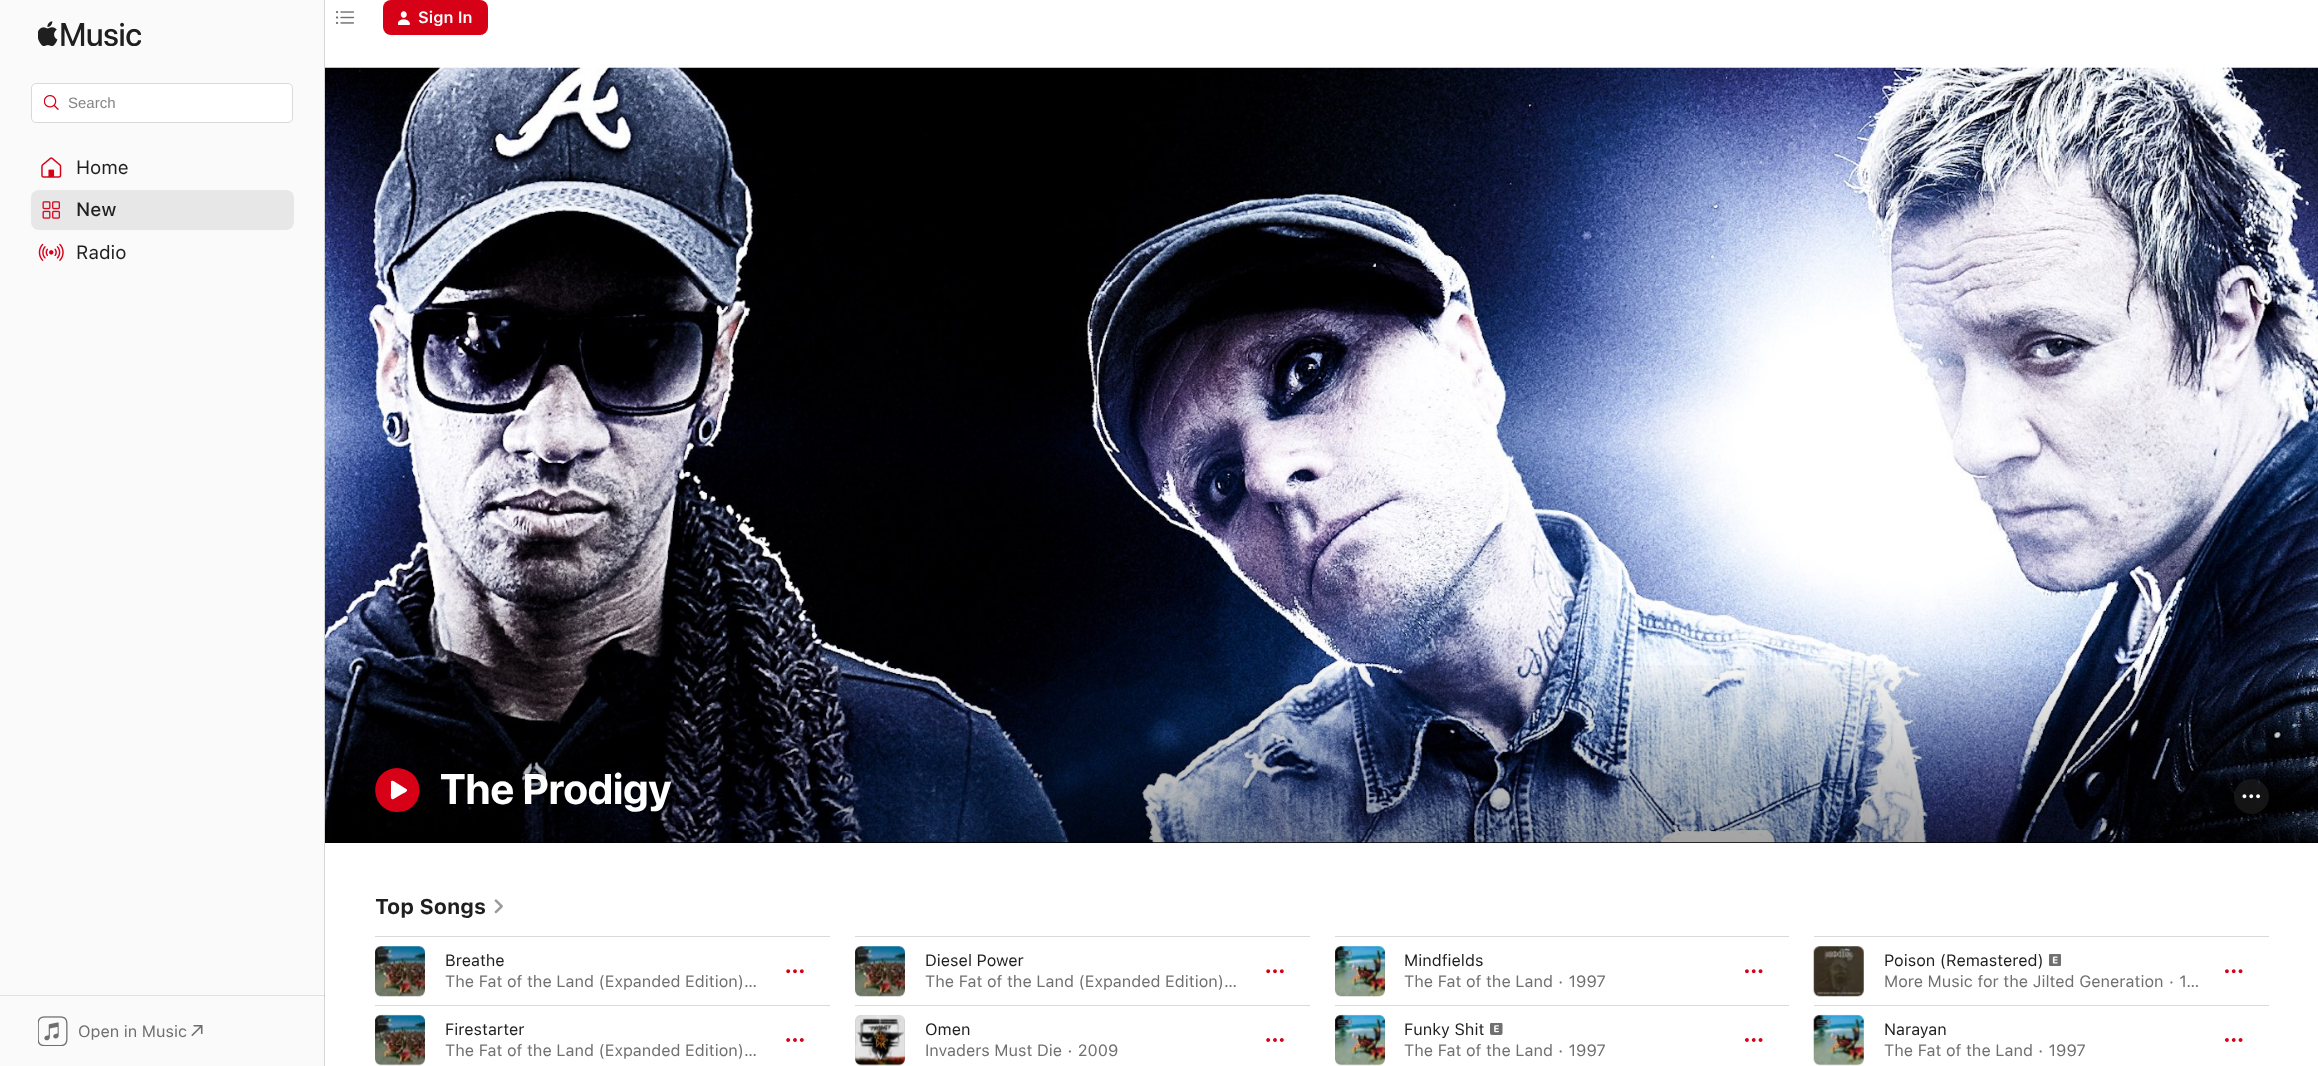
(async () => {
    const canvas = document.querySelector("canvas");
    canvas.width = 2318;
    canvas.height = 1066;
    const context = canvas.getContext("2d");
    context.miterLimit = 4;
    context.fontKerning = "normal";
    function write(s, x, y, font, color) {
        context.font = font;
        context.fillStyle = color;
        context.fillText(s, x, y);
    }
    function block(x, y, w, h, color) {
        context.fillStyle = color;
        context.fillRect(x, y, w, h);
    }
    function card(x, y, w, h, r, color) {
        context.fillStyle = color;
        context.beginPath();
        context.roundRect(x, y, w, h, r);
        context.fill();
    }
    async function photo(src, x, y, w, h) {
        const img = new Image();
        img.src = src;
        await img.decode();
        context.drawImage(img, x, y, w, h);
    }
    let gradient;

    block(0, 0, 2318, 1066, "rgb(255, 255, 255)");
    await photo("media/1.png", 335, 11, 20, 13);
    card(383, 0, 105, 35, 8, "rgb(214, 0, 23)");
    await photo("media/2.png", 398, 11, 12, 14);
    write("Sign In", 418, 23, "600 16.25px SF", "rgb(255, 255, 255)");
    block(0, 0, 324, 1066, "rgb(250, 250, 250)");
    block(0, 995, 325, 1, "rgb(225, 225, 225)");
    block(324, 0, 1, 1066, "rgb(213, 213, 213)");
    block(324, 995, 1, 1, "rgb(192, 192, 192)");
    await photo("media/3.png", 38, 21, 103, 25);
    context.fillStyle = "rgb(255, 255, 255)";
    context.beginPath();
    context.roundRect(31.5, 83.5, 261, 39, 4.5);
    context.fill();
    context.strokeStyle = "rgb(217, 217, 217)";
    context.stroke();
    await photo("media/4.png", 44, 95, 15, 15);
    write("Search", 68, 108, "15px Liberation Sans", "rgb(133, 133, 133)");
    await photo("media/5.png", 41, 157, 21, 21);
    write("Home", 76, 174, "19px SF", "rgb(31, 31, 31)");
    card(31, 190, 263, 40, 8, "rgb(231, 231, 232)");
    await photo("media/6.png", 42, 201, 18, 18);
    write("New", 76, 216, "500 19px SF", "rgb(31, 31, 31)");
    await photo("media/7.png", 38, 243, 26, 18);
    write("Radio", 76, 259, "19px SF", "rgb(31, 31, 31)");
    await photo("media/8.png", 38, 1016, 30, 30);
    write("Open in Music", 78, 1037, "16.25px SF", "rgb(112, 112, 112)");
    await photo("media/9.png", 191, 1025, 12, 11);
    block(325, 842, 1993, 1, "rgb(0, 0, 0)");
    await photo("media/10.png", 325, 67, 1993, 776);
    gradient = context.createLinearGradient(1322, 843, 1322, 655);
    gradient.addColorStop(0, "rgba(0, 0, 0, 0.36)");
    gradient.addColorStop(0.36, "rgba(0, 0, 0, 0.25)");
    gradient.addColorStop(1, "rgba(0, 0, 0, 0)");
    context.fillStyle = gradient;
    context.fillRect(325, 665, 1993, 178);
    context.fillStyle = "rgb(214, 0, 23)";
    context.beginPath();
    context.moveTo(398, 812);
    context.bezierCurveTo(369, 812, 367, 770, 397, 768);
    context.bezierCurveTo(400, 768, 404, 769, 406, 770);
    context.bezierCurveTo(427, 778, 423, 812, 398, 812);
    context.closePath();
    context.fill();
    context.fillStyle = "rgb(255, 255, 255)";
    context.beginPath();
    context.moveTo(393.5, 799);
    context.bezierCurveTo(390, 801, 391, 793.5, 391, 792.5);
    context.lineTo(391, 781.5);
    context.bezierCurveTo(392, 779, 397, 783.5, 397.5, 783.5);
    context.lineTo(407, 789.5);
    context.bezierCurveTo(408, 791.5, 403, 793.5, 402, 794);
    context.closePath();
    context.fill();
    write("The Prodigy", 440, 804, "bold 42.5px 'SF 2'", "rgb(255, 255, 255)");
    context.fillStyle = "rgba(40, 40, 40, 0.5)";
    context.beginPath();
    context.arc(2251.5, 796.5, 17.5, 0, Math.PI * 2);
    context.fill();
    await photo("media/11.png", 2242, 794, 18, 5);
    write("Top Songs", 375, 914, "bold 21.25px SF", "rgb(31, 31, 31)");
    await photo("media/12.png", 494, 899, 9, 15);
    block(375, 936, 455, 1, "rgb(217, 217, 217)");
    await photo("media/13.png", 375, 946, 50, 51);
    context.beginPath();
    context.roundRect(375.5, 946.5, 49, 49, 5.5);
    context.strokeStyle = "rgba(128, 128, 128, 0.1)";
    context.stroke();
    write("Breathe", 445, 966, "16.25px SF", "rgb(31, 31, 31)");
    write("The Fat of the Land (Expanded Edition)…", 445, 987, "16.25px SF", "rgb(112, 112, 112)");
    await photo("media/14.png", 786, 969, 18, 5);
    block(855, 936, 455, 1, "rgb(217, 217, 217)");
    await photo("media/13.png", 855, 946, 50, 51);
    context.beginPath();
    context.roundRect(855.5, 946.5, 49, 49, 5.5);
    context.stroke();
    write("Diesel Power", 925, 966, "16.25px SF", "rgb(31, 31, 31)");
    write("The Fat of the Land (Expanded Edition)…", 925, 987, "16.25px SF", "rgb(112, 112, 112)");
    await photo("media/14.png", 1266, 969, 18, 5);
    block(1335, 936, 454, 1, "rgb(217, 217, 217)");
    await photo("media/15.png", 1335, 946, 50, 51);
    context.beginPath();
    context.roundRect(1335.5, 946.5, 49, 49, 5.5);
    context.stroke();
    write("Mindfields", 1404, 966, "16.25px SF", "rgb(31, 31, 31)");
    write("The Fat of the Land · 1997", 1404, 987, "16.25px SF", "rgb(112, 112, 112)");
    await photo("media/16.png", 1745, 969, 18, 5);
    block(1814, 936, 455, 1, "rgb(217, 217, 217)");
    await photo("media/17.png", 1813, 946, 51, 51);
    context.beginPath();
    context.roundRect(1814.5, 946.5, 49, 49, 5.5);
    context.stroke();
    write("Poison (Remastered)", 1884, 966, "16.25px SF", "rgb(31, 31, 31)");
    await photo("media/18.png", 2049, 954, 12, 12);
    write("More Music for the Jilted Generation · 1…", 1884, 987, "16.25px SF", "rgb(112, 112, 112)");
    await photo("media/16.png", 2225, 969, 18, 5);
    block(375, 1005, 455, 1, "rgb(217, 217, 217)");
    await photo("media/19.png", 375, 1014, 50, 52);
    context.beginPath();
    context.roundRect(375.5, 1015.5, 49, 49, 5.5);
    context.stroke();
    write("Firestarter", 445, 1035, "16.25px SF", "rgb(31, 31, 31)");
    write("The Fat of the Land (Expanded Edition)…", 445, 1056, "16.25px SF", "rgb(112, 112, 112)");
    await photo("media/20.png", 786, 1038, 18, 4);
    block(855, 1005, 455, 1, "rgb(217, 217, 217)");
    await photo("media/21.png", 855, 1015, 50, 51);
    context.beginPath();
    context.roundRect(855.5, 1015.5, 49, 49, 5.5);
    context.stroke();
    write("Omen", 925, 1035, "16.25px SF", "rgb(31, 31, 31)");
    write("Invaders Must Die · 2009", 925, 1056, "16.25px SF", "rgb(112, 112, 112)");
    await photo("media/20.png", 1266, 1038, 18, 4);
    block(1335, 1005, 454, 1, "rgb(217, 217, 217)");
    await photo("media/22.png", 1335, 1014, 50, 52);
    context.beginPath();
    context.roundRect(1335.5, 1015.5, 49, 49, 5.5);
    context.stroke();
    write("Funky Shit", 1404, 1035, "16.25px SF", "rgb(31, 31, 31)");
    await photo("media/23.png", 1490, 1023, 13, 12);
    write("The Fat of the Land · 1997", 1404, 1056, "16.25px SF", "rgb(112, 112, 112)");
    await photo("media/24.png", 1745, 1038, 18, 4);
    block(1814, 1005, 455, 1, "rgb(217, 217, 217)");
    await photo("media/25.png", 1813, 1014, 51, 52);
    context.beginPath();
    context.roundRect(1814.5, 1015.5, 49, 49, 5.5);
    context.stroke();
    write("Narayan", 1884, 1035, "16.25px SF", "rgb(31, 31, 31)");
    write("The Fat of the Land · 1997", 1884, 1056, "16.25px SF", "rgb(112, 112, 112)");
    await photo("media/24.png", 2225, 1038, 18, 4);
})();
